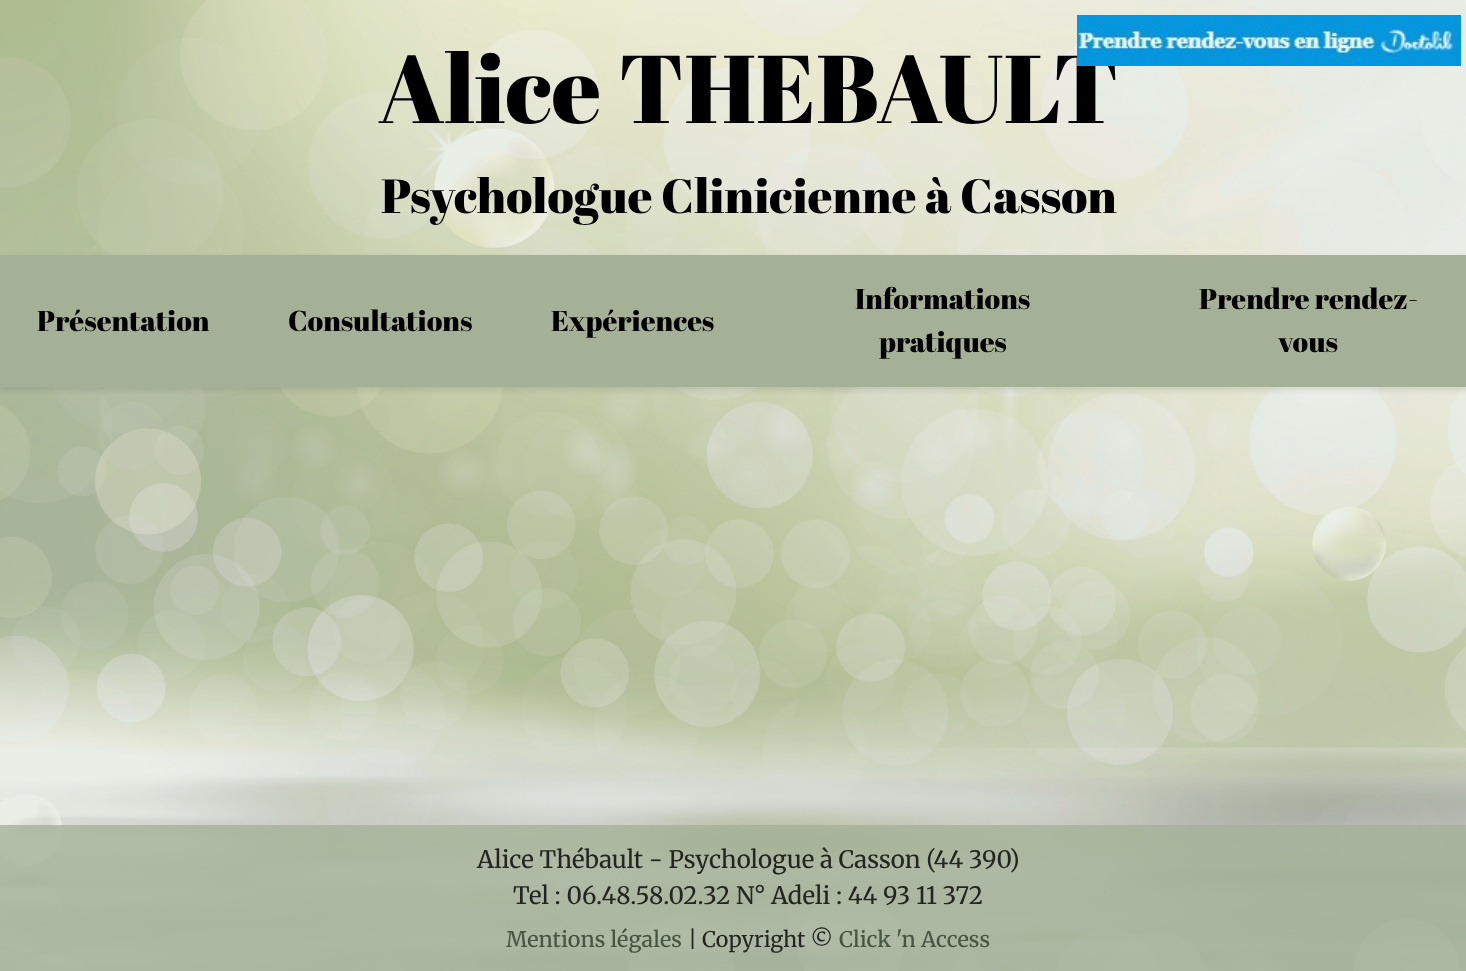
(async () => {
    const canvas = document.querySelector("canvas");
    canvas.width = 1466;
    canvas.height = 971;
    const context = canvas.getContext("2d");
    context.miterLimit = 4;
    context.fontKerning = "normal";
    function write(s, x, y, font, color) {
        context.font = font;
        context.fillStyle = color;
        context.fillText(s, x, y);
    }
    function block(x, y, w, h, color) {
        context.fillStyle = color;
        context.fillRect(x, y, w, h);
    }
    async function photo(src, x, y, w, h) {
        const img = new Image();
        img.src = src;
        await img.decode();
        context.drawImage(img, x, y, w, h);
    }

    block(0, 0, 1466, 971, "rgb(255, 255, 255)");
    await photo("media/1.png", 0, 0, 1466, 971);
    write("Alice THEBAULT", 378, 123, "96px Abril Fatface", "rgb(0, 0, 0)");
    await photo("media/2.png", 1077, 15, 384, 51);
    write("Psychologue Clinicienne à Casson", 381, 213, "48px Abril Fatface", "rgb(0, 0, 0)");
    context.fillStyle = "rgba(0, 0, 0, 0.1)";
    context.filter = "blur(3px)";
    context.beginPath();
    context.rect(0, 258, 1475, 132);
    context.fill();
    context.filter = "none";
    block(0, 255, 1466, 132, "rgb(164, 177, 151)");
    write("Présentation", 37, 331, "28.75px Abril Fatface", "rgb(0, 0, 0)");
    write("Consultations", 288, 331, "28.75px Abril Fatface", "rgb(0, 0, 0)");
    write("Expériences", 551, 331, "28.75px Abril Fatface", "rgb(0, 0, 0)");
    write("Informations", 855, 309, "28.75px Abril Fatface", "rgb(0, 0, 0)");
    write("pratiques", 879, 352, "28.75px Abril Fatface", "rgb(0, 0, 0)");
    write("Prendre rendez-", 1199, 309, "28.75px Abril Fatface", "rgb(0, 0, 0)");
    write("vous", 1278, 352, "28.75px Abril Fatface", "rgb(0, 0, 0)");
    block(0, 825, 1466, 146, "rgba(164, 177, 151, 0.8)");
    write("Alice Thébault - Psychologue à Casson (44 390)", 477, 868, "24px Merriweather", "rgb(34, 37, 32)");
    write("Tel : 06.48.58.02.32", 513, 904, "24px Merriweather", "rgb(34, 37, 32)");
    write("N° Adeli : 44 93 11 372", 736, 904, "24px Merriweather", "rgb(34, 37, 32)");
    write("Mentions légales", 506, 947, "500 21.5px Merriweather", "rgb(70, 86, 66)");
    write("|", 688, 947, "21.5px Merriweather", "rgb(34, 37, 32)");
    write("Copyright ©", 702, 947, "21.5px Merriweather", "rgb(34, 37, 32)");
    write("Click 'n Access", 839, 947, "500 21.5px Merriweather", "rgb(70, 86, 66)");
})();
